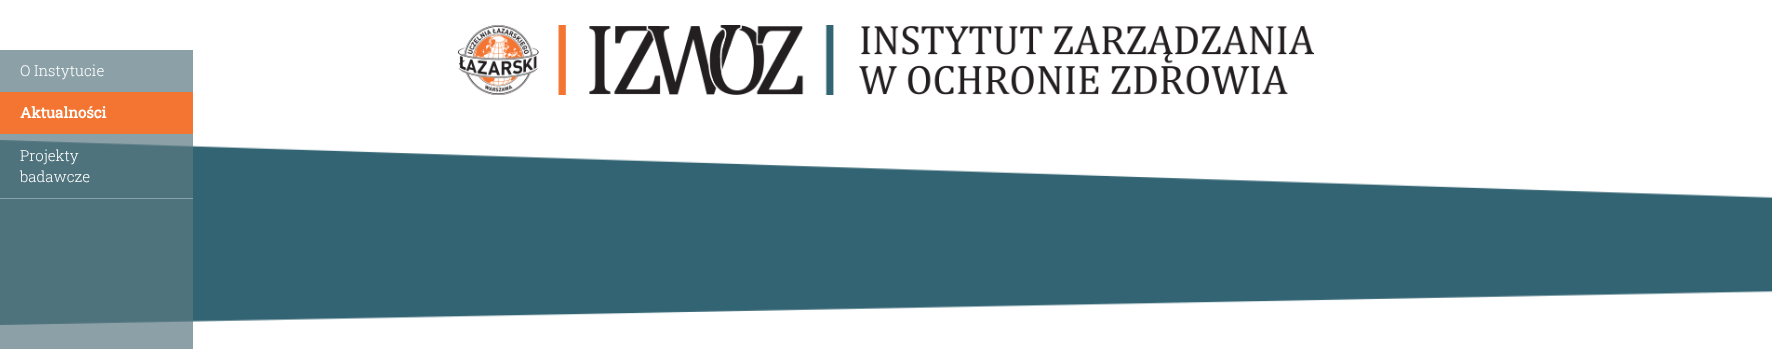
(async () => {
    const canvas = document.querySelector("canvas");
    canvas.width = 1772;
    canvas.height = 349;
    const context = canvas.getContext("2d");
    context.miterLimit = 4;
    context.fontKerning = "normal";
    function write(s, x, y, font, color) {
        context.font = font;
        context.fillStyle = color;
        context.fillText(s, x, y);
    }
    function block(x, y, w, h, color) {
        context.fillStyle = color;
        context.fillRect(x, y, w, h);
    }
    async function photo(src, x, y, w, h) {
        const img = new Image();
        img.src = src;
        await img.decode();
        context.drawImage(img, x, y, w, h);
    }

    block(0, 0, 1772, 349, "rgb(255, 255, 255)");
    await photo("media/1.png", 458, 25, 856, 70);
    await photo("media/2.png", 0, 140, 1772, 185);
    block(0, 50, 193, 299, "rgba(91, 121, 129, 0.7)");
    block(0, 91, 193, 1, "rgb(134, 164, 172)");
    write("O Instytucie", 20, 76, "300 15px Roboto Slab", "rgb(255, 255, 255)");
    block(0, 92, 193, 42, "rgb(243, 117, 49)");
    block(0, 134, 193, 1, "rgb(134, 164, 172)");
    write("Aktualności", 20, 118, "bold 15px Roboto Slab", "rgb(255, 255, 255)");
    block(0, 198, 193, 1, "rgb(134, 164, 172)");
    write("Projekty", 20, 161, "300 15px Roboto Slab", "rgb(255, 255, 255)");
    write("badawcze", 20, 182, "300 15px Roboto Slab", "rgb(255, 255, 255)");
})();
